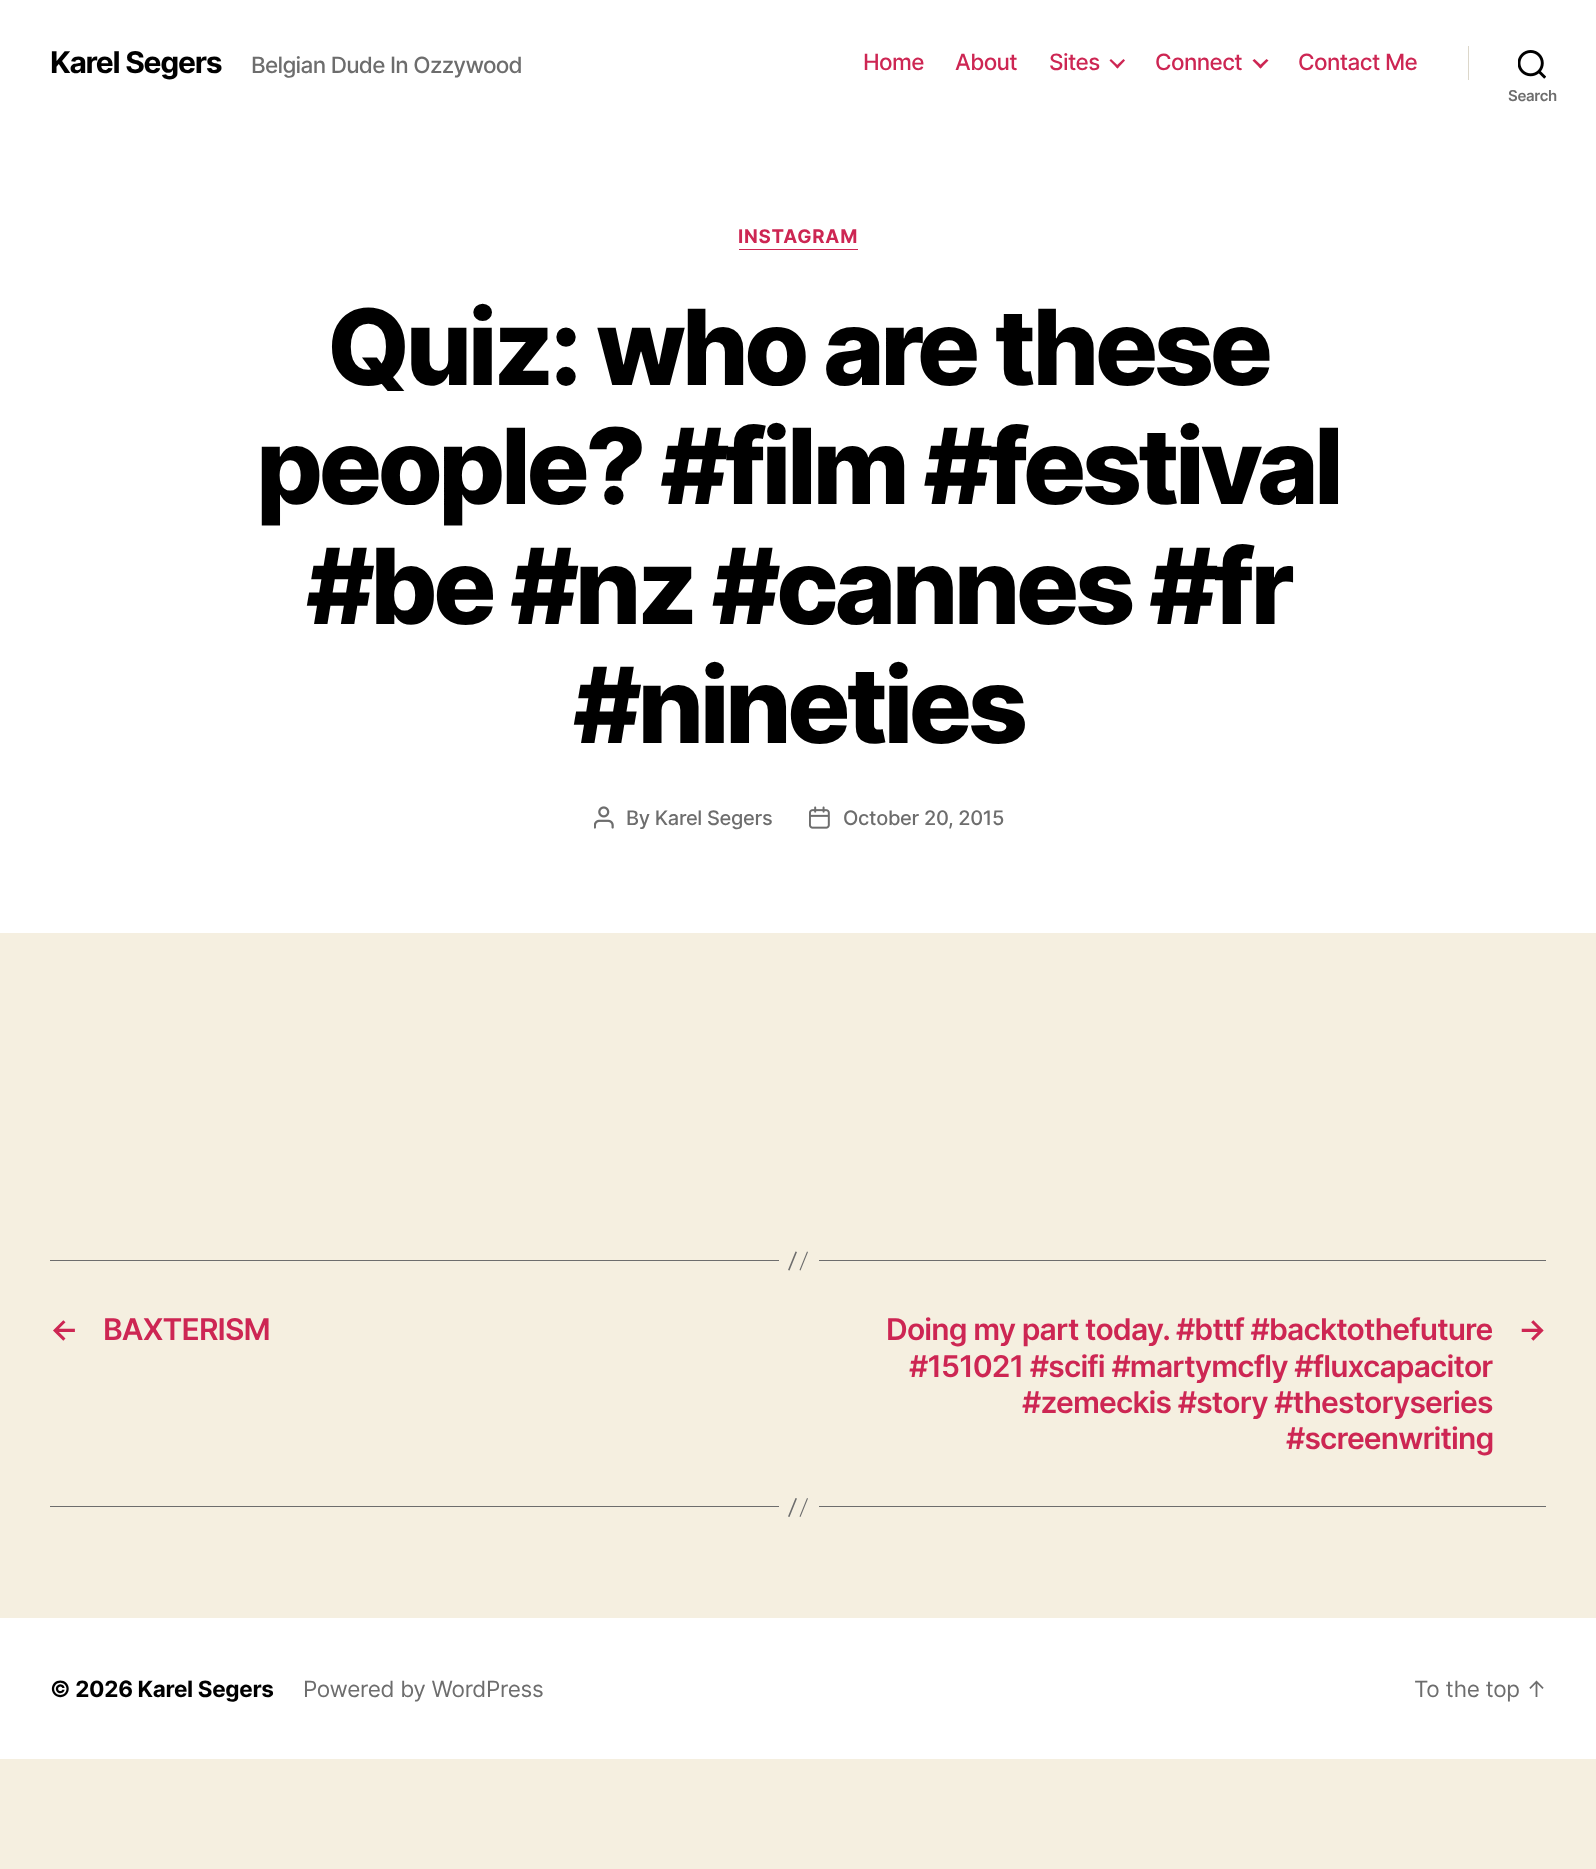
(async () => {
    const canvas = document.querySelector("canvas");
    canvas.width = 1596;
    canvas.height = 1869;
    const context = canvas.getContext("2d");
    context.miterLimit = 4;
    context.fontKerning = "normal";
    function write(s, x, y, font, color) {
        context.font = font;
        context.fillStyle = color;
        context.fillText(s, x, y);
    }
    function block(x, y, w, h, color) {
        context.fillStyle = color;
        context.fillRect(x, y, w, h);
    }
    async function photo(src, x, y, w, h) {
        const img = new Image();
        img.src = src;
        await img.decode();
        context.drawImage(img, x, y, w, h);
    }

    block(0, 0, 1596, 1869, "rgb(245, 239, 224)");
    block(0, 0, 1596, 933, "rgb(255, 255, 255)");
    context.letterSpacing = "-1.25px";
    write("Karel Segers", 50, 73, "bold 30px Inter", "rgb(0, 0, 0)");
    context.letterSpacing = "-0.7px";
    write("Belgian Dude In Ozzywood", 251, 73, "500 22.5px Inter", "rgb(109, 109, 109)");
    context.letterSpacing = "-0.6px";
    write("Home", 863, 70, "500 22.5px Inter", "rgb(205, 38, 83)");
    write("About", 955, 70, "500 22.5px Inter", "rgb(205, 38, 83)");
    write("Sites", 1049, 70, "500 22.5px Inter", "rgb(205, 38, 83)");
    context.beginPath();
    context.moveTo(1109.5, 60.5);
    context.lineTo(1111, 59);
    context.lineTo(1119, 66.5);
    context.lineTo(1117.5, 68.5);
    context.closePath();
    context.fill();
    context.beginPath();
    context.moveTo(1115.5, 66.5);
    context.lineTo(1123.5, 59);
    context.lineTo(1125, 60.5);
    context.lineTo(1117.5, 68.5);
    context.closePath();
    context.fill();
    write("Connect", 1155, 70, "500 22.5px Inter", "rgb(205, 38, 83)");
    context.beginPath();
    context.moveTo(1252.5, 60.5);
    context.lineTo(1254.5, 59);
    context.lineTo(1262.5, 66.5);
    context.lineTo(1260.5, 68.5);
    context.closePath();
    context.fill();
    context.beginPath();
    context.moveTo(1258.5, 66.5);
    context.lineTo(1266.5, 59);
    context.lineTo(1268.5, 60.5);
    context.lineTo(1260.5, 68.5);
    context.closePath();
    context.fill();
    write("Contact Me", 1298, 70, "500 22.5px Inter", "rgb(205, 38, 83)");
    block(1468, 46, 1, 34, "rgb(220, 215, 202)");
    await photo("media/1.png", 1518, 50, 28, 29);
    context.letterSpacing = "-0.3px";
    write("Search", 1508, 101, "600 15px Inter", "rgb(109, 109, 109)");
    block(739, 249, 119, 1, "rgb(205, 38, 83)");
    context.letterSpacing = "0.75px";
    write("INSTAGRAM", 738, 243, "bold 18.75px Inter", "rgb(205, 38, 83)");
    context.letterSpacing = "-4.4px";
    write("Quiz: who are these", 327, 385, "800 105px Inter", "rgb(0, 0, 0)");
    write("people? #film #festival", 256, 504, "800 105px Inter", "rgb(0, 0, 0)");
    write("#be #nz #cannes #fr", 306, 624, "800 105px Inter", "rgb(0, 0, 0)");
    write("#nineties", 573, 743, "800 105px Inter", "rgb(0, 0, 0)");
    await photo("media/2.png", 594, 806, 20, 23);
    context.letterSpacing = "-0.3px";
    write("By Karel Segers", 626, 825, "500 20px Inter", "rgb(109, 109, 109)");
    await photo("media/3.png", 809, 806, 21, 23);
    write("October 20, 2015", 843, 825, "500 20px Inter", "rgb(109, 109, 109)");
    block(819, 1260, 727, 1, "rgb(109, 109, 109)");
    block(50, 1260, 729, 1, "rgb(109, 109, 109)");
    context.beginPath();
    context.moveTo(795.5, 1251.5);
    context.lineTo(797, 1252);
    context.lineTo(789.5, 1270.5);
    context.lineTo(788, 1270);
    context.closePath();
    context.moveTo(807, 1251.5);
    context.lineTo(808, 1252);
    context.lineTo(800.5, 1270.5);
    context.lineTo(799.5, 1270);
    context.closePath();
    context.fill();
    context.letterSpacing = "-0.85px";
    write("←", 50, 1340, "600 30px Inter", "rgb(205, 38, 83)");
    write("BAXTERISM", 103, 1340, "600 30px Inter", "rgb(205, 38, 83)");
    write("Doing my part today. #bttf #backtothefuture", 886, 1340, "600 30px Inter", "rgb(205, 38, 83)");
    write("#151021 #scifi #martymcfly #fluxcapacitor", 909, 1377, "600 30px Inter", "rgb(205, 38, 83)");
    write("#zemeckis #story #thestoryseries", 1022, 1413, "600 30px Inter", "rgb(205, 38, 83)");
    write("#screenwriting", 1286, 1449, "600 30px Inter", "rgb(205, 38, 83)");
    write("→", 1518, 1340, "600 30px Inter", "rgb(205, 38, 83)");
    block(819, 1506, 727, 1, "rgb(109, 109, 109)");
    block(50, 1506, 729, 1, "rgb(109, 109, 109)");
    context.beginPath();
    context.moveTo(795.5, 1498);
    context.lineTo(797, 1498.5);
    context.lineTo(789.5, 1517);
    context.lineTo(788, 1516.5);
    context.closePath();
    context.moveTo(807, 1498);
    context.lineTo(808, 1498.5);
    context.lineTo(800.5, 1517);
    context.lineTo(799.5, 1516.5);
    context.closePath();
    context.fill();
    block(0, 1618, 1596, 141, "rgb(255, 255, 255)");
    context.letterSpacing = "-0.3px";
    write("© 2026 Karel Segers", 50, 1697, "bold 22.5px Inter", "rgb(0, 0, 0)");
    write("Powered by WordPress", 303, 1697, "22.5px Inter", "rgb(109, 109, 109)");
    write("To the top ↑", 1414, 1697, "22.5px Inter", "rgb(109, 109, 109)");
})();
